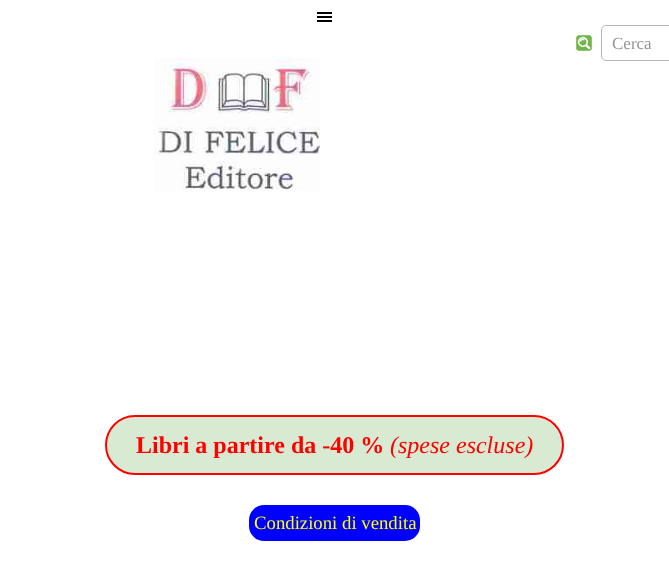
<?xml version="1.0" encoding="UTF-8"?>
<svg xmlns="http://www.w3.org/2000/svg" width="669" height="570">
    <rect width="100%" height="100%" fill="#FFFFFF"/>
    <rect x="317" y="12" width="15" height="2" fill="#000000"/>
    <rect x="317" y="16" width="15" height="2" fill="#000000"/>
    <rect x="317" y="20" width="15" height="2" fill="#000000"/>
    <image x="576" y="35" width="16" height="16" href="img_01.png"/>
    <rect x="601.5" y="25.5" width="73" height="35" rx="4.5" fill="none" stroke="#B7B7B7"/>
    <text x="612" y="49" font-family="Liberation Serif" font-size="17" fill="#949494">Cerca</text>
    <image x="154" y="58" width="166" height="133" href="img_02.png"/>
    <rect x="106" y="416" width="457" height="58" rx="29" fill="#D9EAD3" stroke="#FF0000" stroke-width="2"/>
    <text x="136" y="453" font-family="Liberation Serif" font-size="24" font-weight="700" fill="#FF0000">Libri a partire da -40 %</text>
    <text x="390" y="453" font-family="Liberation Serif" font-size="24" font-style="italic" fill="#FF0000">(spese escluse)</text>
    <rect x="249" y="505" width="171" height="36" rx="15" fill="#0000FF"/>
    <text x="254" y="529" font-family="Liberation Serif" font-size="18.75" fill="#FFFF00">Condizioni di vendita</text>
</svg>
